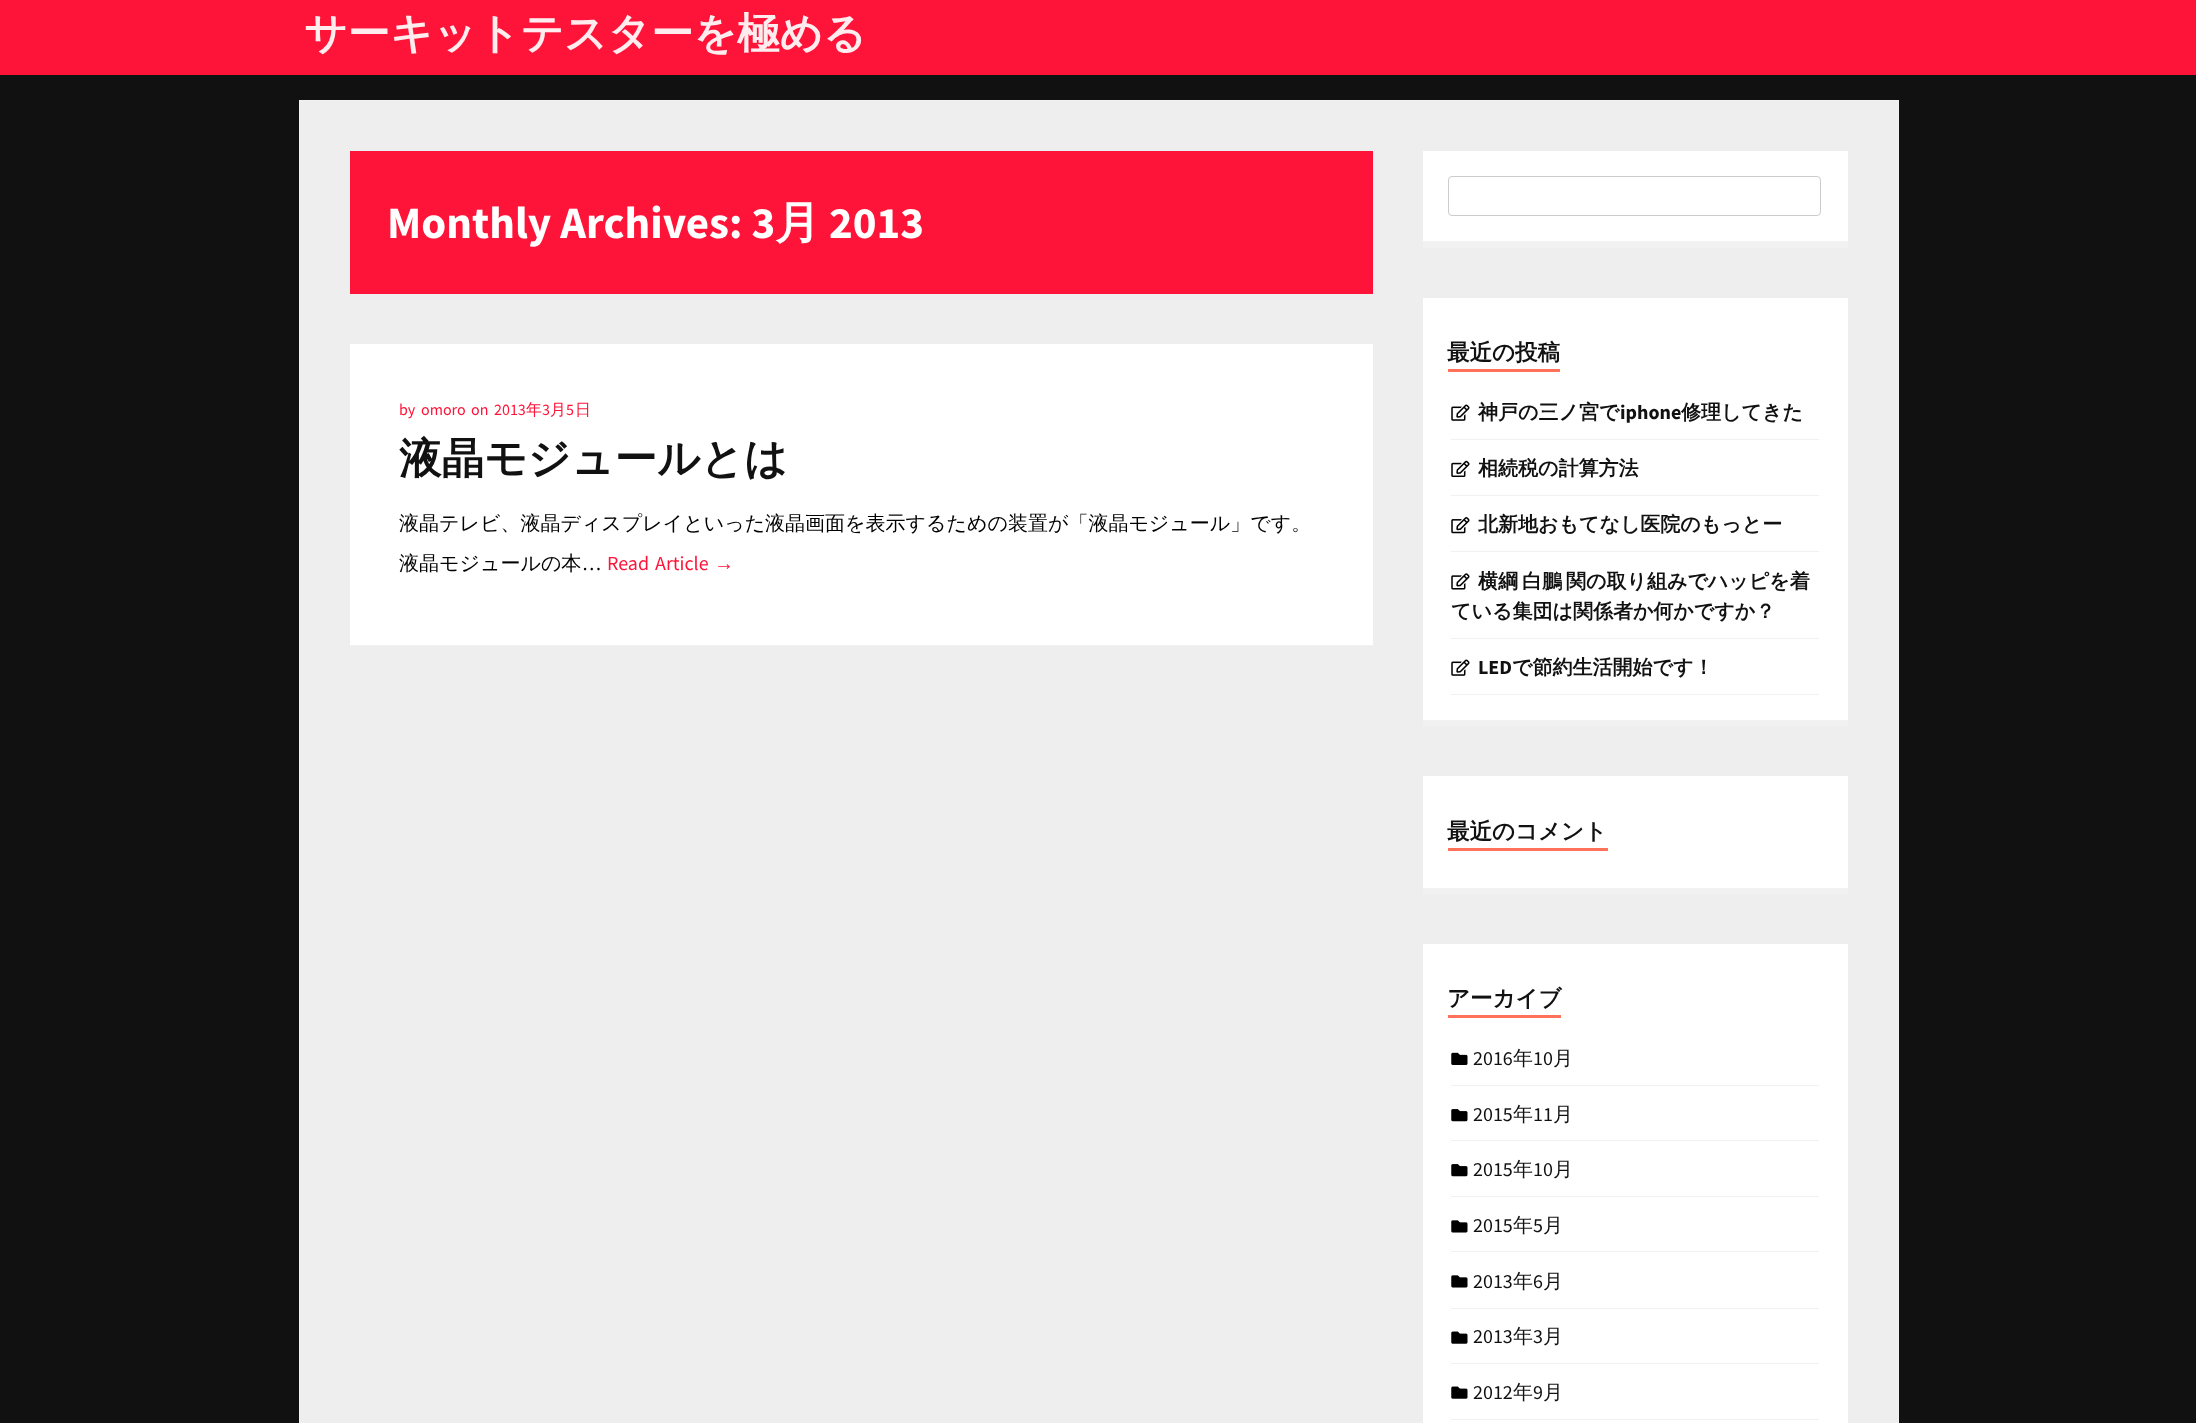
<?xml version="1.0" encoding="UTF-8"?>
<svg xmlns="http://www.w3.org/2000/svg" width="2196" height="1423">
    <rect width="100%" height="100%" fill="#111111"/>
    <rect x="0" y="0" width="2196" height="75" fill="#FF1439"/>
    <text x="304" y="48" font-family="WenQuanYi Zen Hei" font-size="42.5" font-weight="700" fill="#FFECEF">サーキットテスターを極める</text>
    <rect x="299.5" y="100.5" width="1599" height="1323" fill="#EEEEEE" stroke="#F1F1F1"/>
    <rect x="350" y="151" width="1023" height="143" fill="#FF1439"/>
    <text x="387" y="238" font-family="Source Sans Pro" font-size="45" font-weight="700" fill="#FFFFFF">Monthly Archives: 3</text>
    <text x="775" y="238" font-family="WenQuanYi Zen Hei" font-size="45" font-weight="700" fill="#FFFFFF">月</text>
    <text x="829" y="238" font-family="Source Sans Pro" font-size="45" font-weight="700" fill="#FFFFFF">2013</text>
    <rect x="350" y="344" width="1023" height="301" fill="#FFFFFF"/>
    <rect x="350" y="645" width="1023" height="1" fill="#F1F1F1"/>
    <text x="399" y="415" font-family="Source Sans Pro" font-size="16" fill="#FF1439">by</text>
    <text x="421" y="415" font-family="Source Sans Pro" font-size="16" fill="#FF1439">omoro</text>
    <text x="471" y="415" font-family="Source Sans Pro" font-size="16" fill="#FF1439">on</text>
    <text x="494" y="415" font-family="Source Sans Pro" font-size="16" fill="#FF1439">2013</text>
    <text x="526" y="415" font-family="WenQuanYi Zen Hei" font-size="16" font-weight="500" fill="#FF1439">年</text>
    <text x="542" y="415" font-family="Source Sans Pro" font-size="16" fill="#FF1439">3</text>
    <text x="550" y="415" font-family="WenQuanYi Zen Hei" font-size="16" font-weight="500" fill="#FF1439">月</text>
    <text x="566" y="415" font-family="Source Sans Pro" font-size="16" fill="#FF1439">5</text>
    <text x="575" y="415" font-family="WenQuanYi Zen Hei" font-size="16" font-weight="500" fill="#FF1439">日</text>
    <text x="399" y="473" font-family="WenQuanYi Zen Hei" font-size="42.5" font-weight="700" fill="#111111">液晶モジュールとは</text>
    <text x="399" y="530" font-family="WenQuanYi Zen Hei" font-size="20" font-weight="500" fill="#000000">液晶テレビ、液晶ディスプレイといった液晶画面を表示するための装置が「液晶モジュール」です。</text>
    <text x="399" y="570" font-family="WenQuanYi Zen Hei" font-size="20" font-weight="500" fill="#000000">液晶モジュールの本</text>
    <text x="582" y="570" font-family="Source Sans Pro" font-size="20" fill="#000000">…</text>
    <text x="607" y="570" word-spacing="2" font-family="Source Sans Pro" font-size="20" fill="#FF1439">Read Article</text>
    <text x="714" y="570" font-family="Liberation Sans" font-size="20" fill="#FF1439">→</text>
    <rect x="1423" y="151" width="425" height="90" fill="#FFFFFF"/>
    <rect x="1423" y="241" width="425" height="7" fill="#F1F1F1"/>
    <rect x="1448.5" y="176.5" width="372" height="39" rx="3.5" fill="none" stroke="#CCCCCC"/>
    <rect x="1423" y="298" width="425" height="422" fill="#FFFFFF"/>
    <rect x="1423" y="720" width="425" height="6" fill="#F1F1F1"/>
    <rect x="1448" y="369" width="112" height="3" fill="#FF715B"/>
    <text x="1447" y="360" font-family="WenQuanYi Zen Hei" font-size="22.5" font-weight="700" fill="#111111">最近の投稿</text>
    <rect x="1451" y="439" width="368" height="1" fill="#F1F1F1"/>
    <image x="1451" y="404" width="19" height="17" href="img_01.png"/>
    <text x="1478" y="419" font-family="WenQuanYi Zen Hei" font-size="20" font-weight="700" fill="#111111">神戸の三ノ宮で</text>
    <text x="1620" y="419" font-family="Source Sans Pro" font-size="20" font-weight="700" fill="#111111">iphone</text>
    <text x="1681" y="419" font-family="WenQuanYi Zen Hei" font-size="20" font-weight="700" fill="#111111">修理してきた</text>
    <rect x="1451" y="495" width="368" height="1" fill="#F1F1F1"/>
    <image x="1451" y="460" width="19" height="17" href="img_02.png"/>
    <text x="1478" y="475" font-family="WenQuanYi Zen Hei" font-size="20" font-weight="700" fill="#111111">相続税の計算方法</text>
    <rect x="1451" y="551" width="368" height="1" fill="#F1F1F1"/>
    <image x="1451" y="517" width="19" height="17" href="img_03.png"/>
    <text x="1478" y="531" font-family="WenQuanYi Zen Hei" font-size="20" font-weight="700" fill="#111111">北新地おもてなし医院のもっとー</text>
    <rect x="1451" y="638" width="368" height="1" fill="#F1F1F1"/>
    <image x="1451" y="573" width="19" height="17" href="img_04.png"/>
    <text x="1478" y="588" word-spacing="-2" font-family="WenQuanYi Zen Hei" font-size="20" font-weight="700" fill="#111111">横綱 白鵬 関の取り組みでハッピを着</text>
    <text x="1451" y="618" font-family="WenQuanYi Zen Hei" font-size="20" font-weight="700" fill="#111111">ている集団は関係者か何かですか？</text>
    <rect x="1451" y="694" width="368" height="1" fill="#F1F1F1"/>
    <image x="1451" y="659" width="19" height="17" href="img_01.png"/>
    <text x="1478" y="674" font-family="Source Sans Pro" font-size="20" font-weight="700" fill="#111111">LED</text>
    <text x="1512" y="674" font-family="WenQuanYi Zen Hei" font-size="20" font-weight="700" fill="#111111">で節約生活開始です！</text>
    <rect x="1423" y="776" width="425" height="112" fill="#FFFFFF"/>
    <rect x="1423" y="888" width="425" height="6" fill="#F1F1F1"/>
    <rect x="1448" y="848" width="160" height="3" fill="#FF715B"/>
    <text x="1447" y="839" font-family="WenQuanYi Zen Hei" font-size="22.5" font-weight="700" fill="#111111">最近のコメント</text>
    <rect x="1423" y="944" width="425" height="479" fill="#FFFFFF"/>
    <rect x="1448" y="1015" width="113" height="3" fill="#FF715B"/>
    <text x="1447" y="1006" font-family="WenQuanYi Zen Hei" font-size="22.5" font-weight="700" fill="#111111">アーカイブ</text>
    <rect x="1451" y="1085" width="368" height="1" fill="#F1F1F1"/>
    <image x="1451" y="1052" width="17" height="13" href="img_05.png"/>
    <text x="1473" y="1065" font-family="Source Sans Pro" font-size="20" fill="#111111">2016</text>
    <text x="1513" y="1065" font-family="WenQuanYi Zen Hei" font-size="20" font-weight="500" fill="#111111">年</text>
    <text x="1533" y="1065" font-family="Source Sans Pro" font-size="20" fill="#111111">10</text>
    <text x="1553" y="1065" font-family="WenQuanYi Zen Hei" font-size="20" font-weight="500" fill="#111111">月</text>
    <rect x="1451" y="1140" width="368" height="1" fill="#F1F1F1"/>
    <image x="1451" y="1109" width="17" height="13" href="img_06.png"/>
    <text x="1473" y="1121" font-family="Source Sans Pro" font-size="20" fill="#111111">2015</text>
    <text x="1513" y="1121" font-family="WenQuanYi Zen Hei" font-size="20" font-weight="500" fill="#111111">年</text>
    <text x="1533" y="1121" font-family="Source Sans Pro" font-size="20" fill="#111111">11</text>
    <text x="1553" y="1121" font-family="WenQuanYi Zen Hei" font-size="20" font-weight="500" fill="#111111">月</text>
    <rect x="1451" y="1196" width="368" height="1" fill="#F1F1F1"/>
    <image x="1451" y="1164" width="17" height="13" href="img_06.png"/>
    <text x="1473" y="1176" font-family="Source Sans Pro" font-size="20" fill="#111111">2015</text>
    <text x="1513" y="1176" font-family="WenQuanYi Zen Hei" font-size="20" font-weight="500" fill="#111111">年</text>
    <text x="1533" y="1176" font-family="Source Sans Pro" font-size="20" fill="#111111">10</text>
    <text x="1553" y="1176" font-family="WenQuanYi Zen Hei" font-size="20" font-weight="500" fill="#111111">月</text>
    <rect x="1451" y="1251" width="368" height="1" fill="#F1F1F1"/>
    <image x="1451" y="1220" width="17" height="13" href="img_07.png"/>
    <text x="1473" y="1232" font-family="Source Sans Pro" font-size="20" fill="#111111">2015</text>
    <text x="1513" y="1232" font-family="WenQuanYi Zen Hei" font-size="20" font-weight="500" fill="#111111">年</text>
    <text x="1533" y="1232" font-family="Source Sans Pro" font-size="20" fill="#111111">5</text>
    <text x="1543" y="1232" font-family="WenQuanYi Zen Hei" font-size="20" font-weight="500" fill="#111111">月</text>
    <rect x="1451" y="1308" width="368" height="1" fill="#F1F1F1"/>
    <image x="1451" y="1275" width="17" height="13" href="img_07.png"/>
    <text x="1473" y="1288" font-family="Source Sans Pro" font-size="20" fill="#111111">2013</text>
    <text x="1513" y="1288" font-family="WenQuanYi Zen Hei" font-size="20" font-weight="500" fill="#111111">年</text>
    <text x="1533" y="1288" font-family="Source Sans Pro" font-size="20" fill="#111111">6</text>
    <text x="1543" y="1288" font-family="WenQuanYi Zen Hei" font-size="20" font-weight="500" fill="#111111">月</text>
    <rect x="1451" y="1363" width="368" height="1" fill="#F1F1F1"/>
    <image x="1451" y="1331" width="17" height="13" href="img_08.png"/>
    <text x="1473" y="1343" font-family="Source Sans Pro" font-size="20" fill="#111111">2013</text>
    <text x="1513" y="1343" font-family="WenQuanYi Zen Hei" font-size="20" font-weight="500" fill="#111111">年</text>
    <text x="1533" y="1343" font-family="Source Sans Pro" font-size="20" fill="#111111">3</text>
    <text x="1543" y="1343" font-family="WenQuanYi Zen Hei" font-size="20" font-weight="500" fill="#111111">月</text>
    <rect x="1451" y="1419" width="368" height="1" fill="#F1F1F1"/>
    <image x="1451" y="1386" width="17" height="13" href="img_08.png"/>
    <text x="1473" y="1399" font-family="Source Sans Pro" font-size="20" fill="#111111">2012</text>
    <text x="1513" y="1399" font-family="WenQuanYi Zen Hei" font-size="20" font-weight="500" fill="#111111">年</text>
    <text x="1533" y="1399" font-family="Source Sans Pro" font-size="20" fill="#111111">9</text>
    <text x="1543" y="1399" font-family="WenQuanYi Zen Hei" font-size="20" font-weight="500" fill="#111111">月</text>
</svg>
